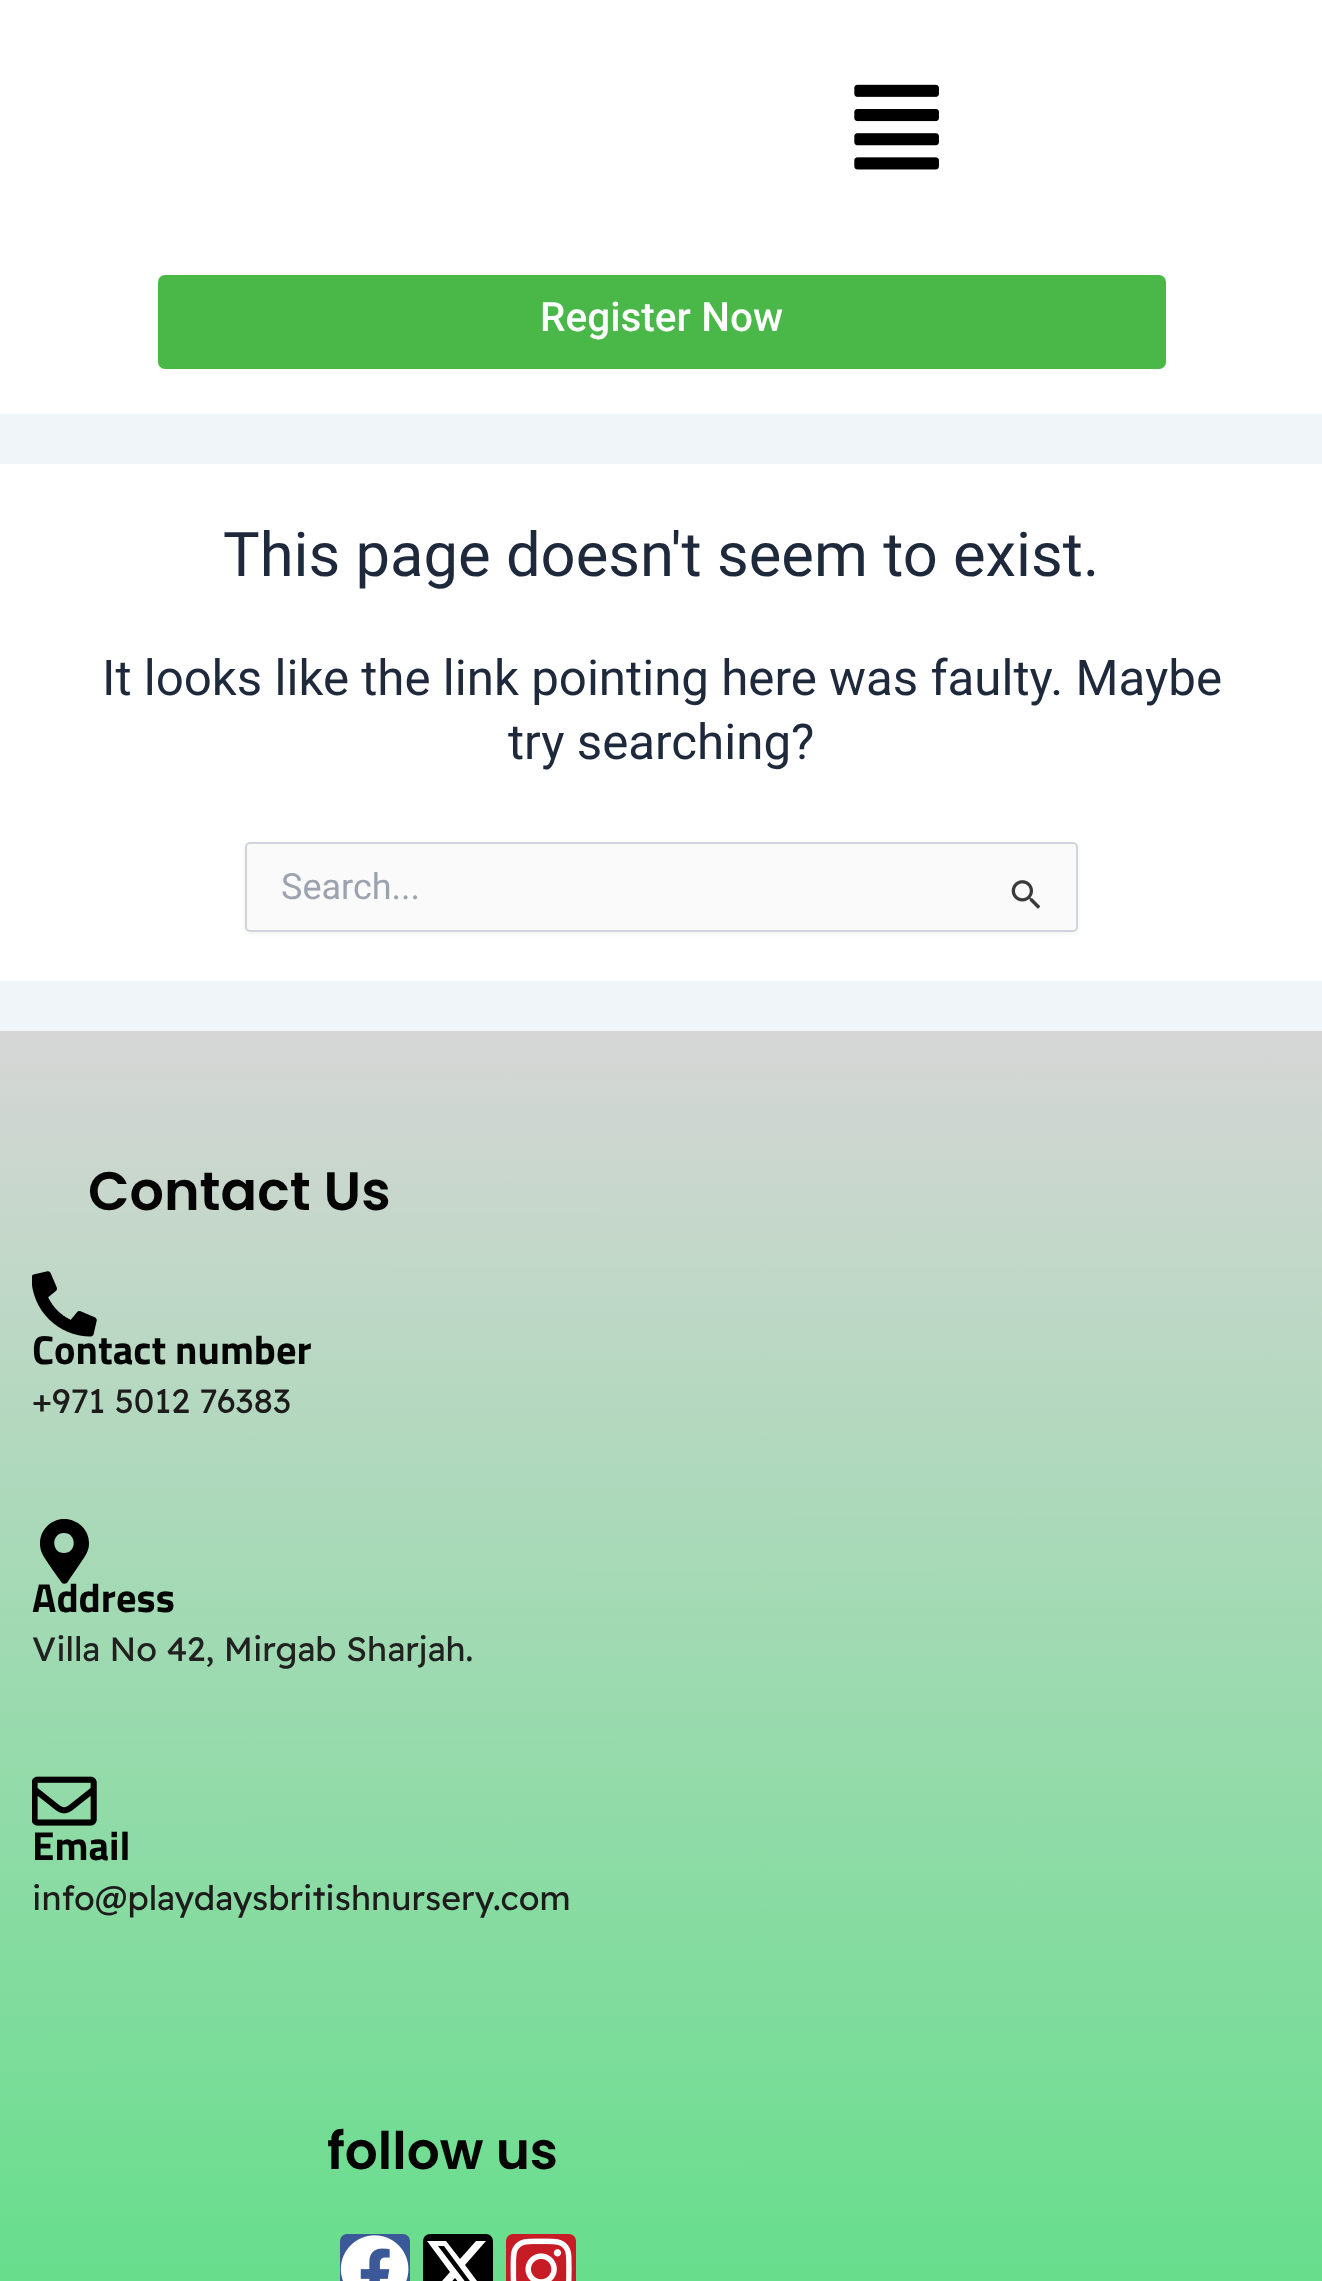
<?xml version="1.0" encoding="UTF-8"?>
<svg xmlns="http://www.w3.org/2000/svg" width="1322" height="2281">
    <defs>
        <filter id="blur1" x="-50%" y="-200%" width="200%" height="500%"><feGaussianBlur stdDeviation="2"/></filter>
        <linearGradient id="g1" gradientUnits="userSpaceOnUse" x1="661" y1="1030" x2="662" y2="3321"><stop offset="0" stop-color="#D6D6D6"/><stop offset="1" stop-color="#0AE44E"/></linearGradient>
    </defs>
    <rect width="100%" height="100%" fill="#F0F5FA"/>
    <rect x="0" y="0" width="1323" height="414" rx="2" fill="#FFFFFF"/>
    <image x="854" y="84" width="85" height="86" href="img_01.png"/>
    <rect x="158" y="275" width="1008" height="94" rx="7" fill="#4AB848"/>
    <text x="540" y="331" font-family="Vazirmatn" font-size="40.5" font-weight="500" fill="#FFFFFF">Register Now</text>
    <rect x="0" y="464" width="1322" height="517" fill="#FFFFFF"/>
    <text x="223" y="576" font-family="Roboto" font-size="61.5" fill="#1E293B">This page doesn't seem to exist.</text>
    <text x="102" y="695" font-family="Roboto" font-size="49.25" fill="#1E293B">It looks like the link pointing here was faulty. Maybe</text>
    <text x="508" y="759" font-family="Roboto" font-size="49.25" fill="#1E293B">try searching?</text>
    <rect x="245" y="844" width="833" height="90" rx="5" fill="#000000" fill-opacity="0.05" filter="url(#blur1)"/>
    <rect x="246" y="843" width="831" height="88" rx="4" fill="#FAFAFA" stroke="#D1D5DB" stroke-width="2"/>
    <text x="281" y="899" font-family="Roboto" font-size="36" fill="#9CA3AF">Search...</text>
    <image x="1011" y="880" width="29" height="29" href="img_02.png"/>
    <rect x="0" y="1031" width="1322" height="1250" fill="url(#g1)"/>
    <text x="88" y="1210" font-family="Poppins" font-size="54" font-weight="600" fill="#050505">Contact Us</text>
    <text x="32" y="1364" font-family="Sunflower" font-size="40.5" font-weight="700" fill="#050505">Contact number</text>
    <image x="32" y="1271" width="65" height="66" href="img_03.png"/>
    <text x="32" y="1413" font-family="Readex Pro" font-size="33.75" fill="#1D1B1B">+971 5012 76383</text>
    <text x="32" y="1612" font-family="Sunflower" font-size="40.5" font-weight="700" fill="#050505">Address</text>
    <path d="M 62 1583 C 43 1556 40 1553 40 1543 C 40 1530 51 1519 64 1519 C 78 1519 89 1530 89 1543 C 89 1553 85 1556 67 1583 C 65 1584 63 1584 62 1583 Z M 64 1553 C 77 1553 77 1533 64 1533 C 51 1533 51 1553 64 1553 Z" fill="#000000"/>
    <text x="32" y="1661" font-family="Readex Pro" font-size="33.75" fill="#222121">Villa No 42, Mirgab Sharjah.</text>
    <image x="32" y="1776" width="65" height="50" href="img_04.png"/>
    <text x="32" y="1860" font-family="Sunflower" font-size="40.5" font-weight="700" fill="#050505">Email</text>
    <text x="32" y="1910" font-family="Readex Pro" font-size="33.75" fill="#1D1B1B">info@playdaysbritishnursery.com</text>
    <text x="327" y="2169" font-family="Poppins" font-size="51.75" font-weight="600" fill="#050505">follow us</text>
    <rect x="340" y="2234" width="70" height="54" rx="7" fill="#3B5998"/>
    <image x="340" y="2235" width="69" height="46" href="img_05.png"/>
    <rect x="423" y="2234" width="70" height="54" rx="7" fill="#000000"/>
    <path d="M 476 2241 H 486 L 465 2265 L 489 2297 H 470 L 455 2278 L 438 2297 H 428 L 450 2272 L 427 2241 H 446 L 460 2259 Z M 473 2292 H 478 L 444 2246 H 438 Z" fill="#FFFFFF"/>
    <rect x="506" y="2234" width="70" height="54" rx="7" fill="#C71B26"/>
    <image x="510" y="2238" width="62" height="43" href="img_06.png"/>
</svg>
